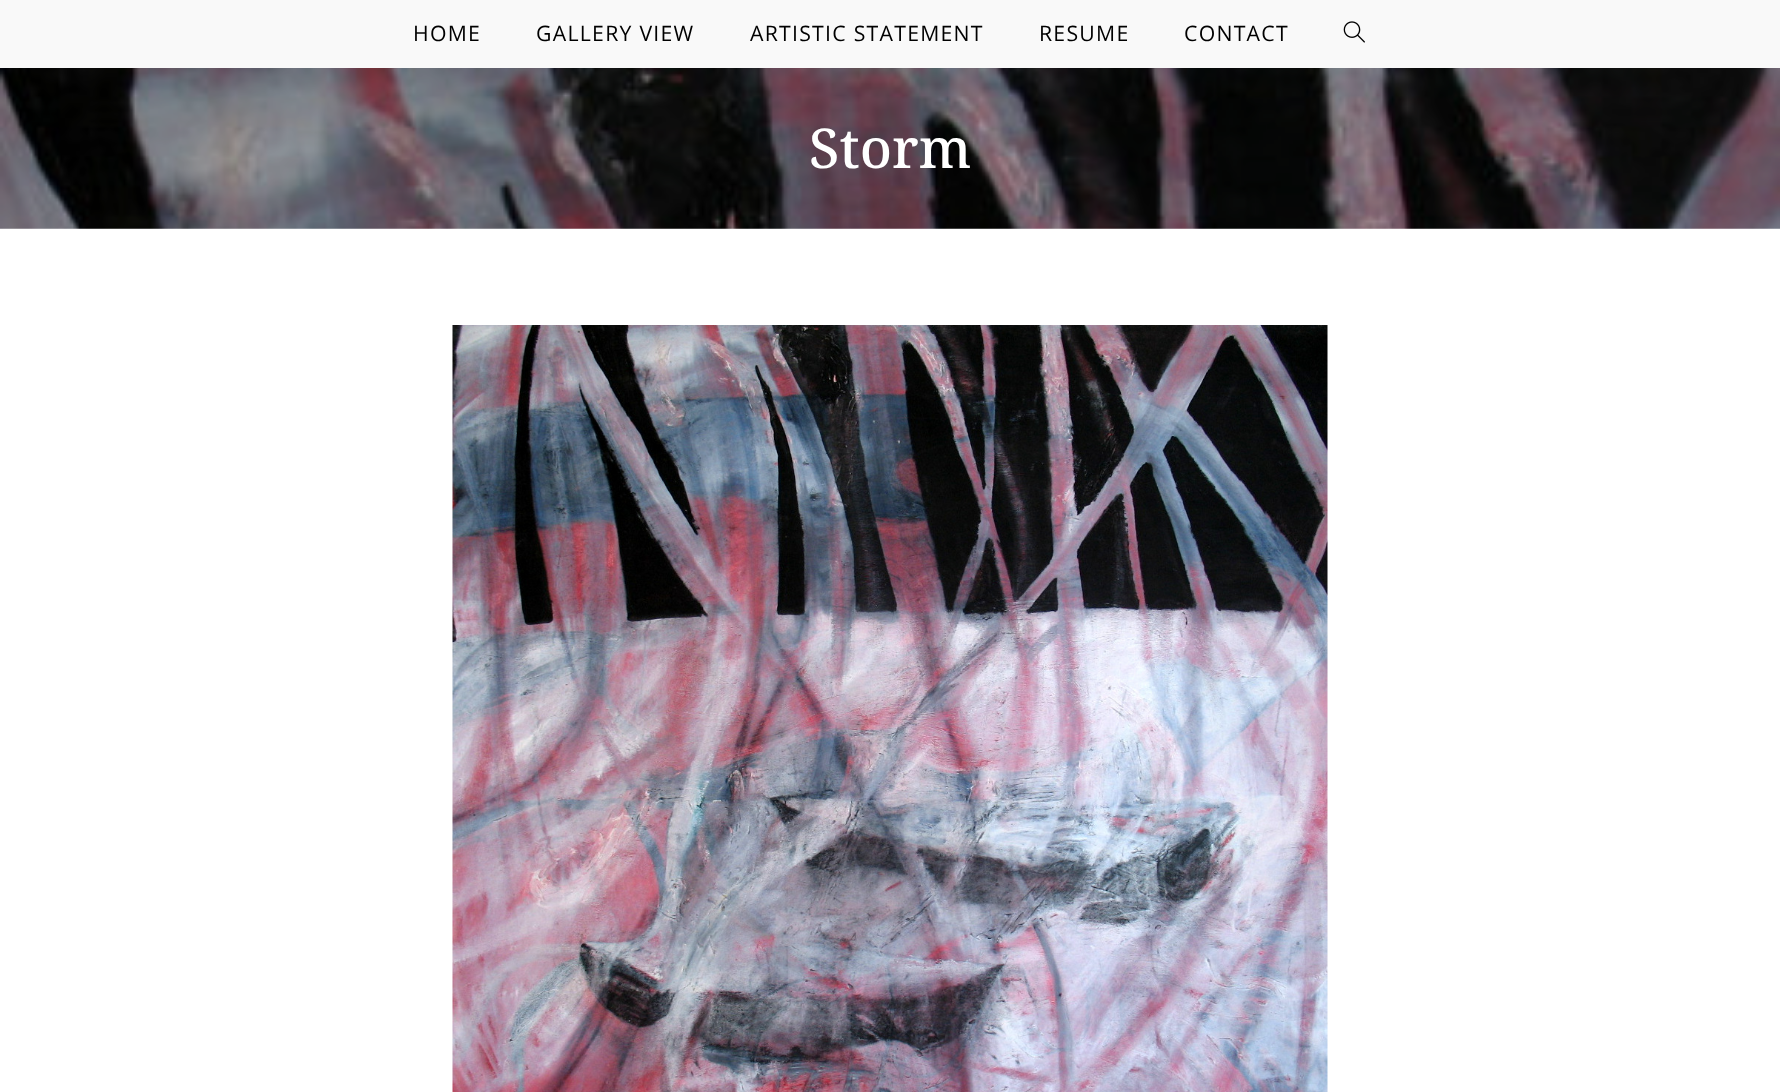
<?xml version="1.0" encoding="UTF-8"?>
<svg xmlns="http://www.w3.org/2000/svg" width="1780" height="1092">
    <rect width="100%" height="100%" fill="#FFFFFF"/>
    <rect x="0" y="0" width="1780" height="68" fill="#F9F9F9"/>
    <text x="413" y="41" font-family="Open Sans" font-size="21.25" letter-spacing="1.25" fill="#000000">HOME</text>
    <text x="536" y="41" font-family="Open Sans" font-size="21.25" letter-spacing="1.25" fill="#000000">GALLERY VIEW</text>
    <text x="750" y="41" font-family="Open Sans" font-size="21.25" letter-spacing="1.25" fill="#000000">ARTISTIC STATEMENT</text>
    <text x="1039" y="41" font-family="Open Sans" font-size="21.25" letter-spacing="1.25" fill="#000000">RESUME</text>
    <text x="1184" y="41" font-family="Open Sans" font-size="21.25" letter-spacing="1.25" fill="#000000">CONTACT</text>
    <image x="1343" y="21" width="22" height="22" href="img_01.png"/>
    <image x="0" y="68" width="1780" height="161" href="img_02.png"/>
    <text x="809" y="168" font-family="Noto Serif" font-size="55" font-weight="500" fill="#FFFFFF">Storm</text>
    <image x="452" y="325" width="876" height="767" href="img_03.png"/>
</svg>
